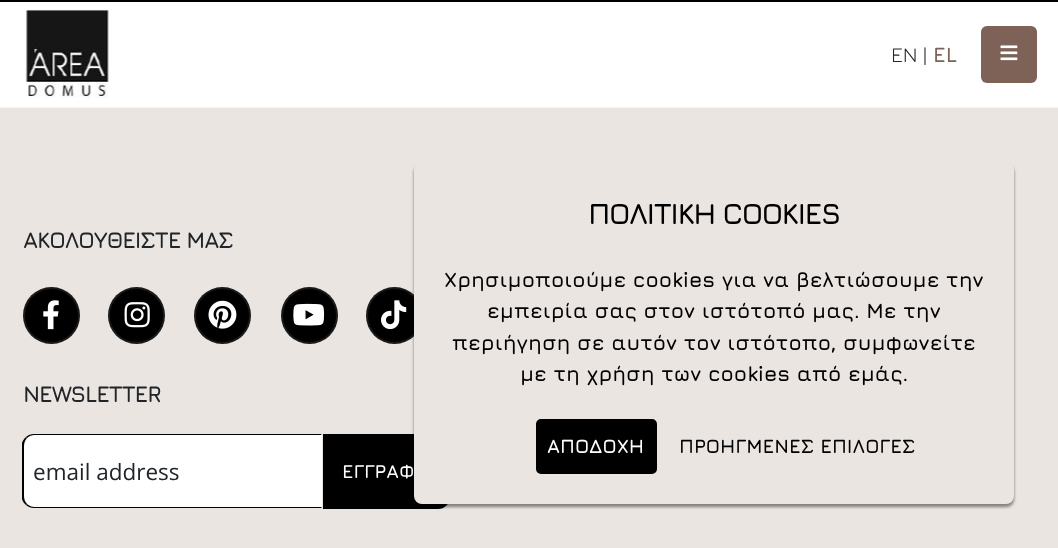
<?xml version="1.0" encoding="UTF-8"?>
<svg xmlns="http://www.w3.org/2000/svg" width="1058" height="548">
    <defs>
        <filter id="blur1" x="-50%" y="-200%" width="200%" height="500%"><feGaussianBlur stdDeviation="1.5"/></filter>
    </defs>
    <rect width="100%" height="100%" fill="#EBE5E2"/>
    <rect x="0" y="2" width="1058" height="106" fill="#FFFFFF"/>
    <rect x="0" y="107" width="1058" height="2" fill="#EAEAEA" fill-opacity="0.5"/>
    <rect x="0" y="0" width="1058" height="2" fill="#000000"/>
    <image x="25" y="9" width="84" height="89" href="img_01.png"/>
    <text x="891" y="62" font-family="Jura" font-size="21" fill="#212529">EN |</text>
    <text x="933" y="62" font-family="Jura" font-size="21" font-weight="700" fill="#7E6257">EL</text>
    <rect x="981" y="26" width="56" height="57" rx="6" fill="#7E6257"/>
    <image x="1000" y="45" width="18" height="16" href="img_02.png"/>
    <text x="23" y="248" font-family="Jura" font-size="22.75" font-weight="700" letter-spacing="-1.1" fill="#212529">ΑΚΟΛΟΥΘΕΙΣΤΕ ΜΑΣ</text>
    <circle cx="51.5" cy="315.5" r="28.5" fill="#000000"/>
    <circle cx="51.5" cy="315.5" r="27.5" fill="none" stroke="#FFFFFF" stroke-opacity="0.1" stroke-width="2"/>
    <image x="43" y="300" width="16" height="30" href="img_03.png"/>
    <circle cx="136.5" cy="315.5" r="28.5" fill="#000000"/>
    <circle cx="136.5" cy="315.5" r="27.5" fill="none" stroke="#FFFFFF" stroke-opacity="0.1" stroke-width="2"/>
    <image x="124" y="302" width="26" height="26" href="img_04.png"/>
    <circle cx="222.5" cy="315.5" r="28.5" fill="#000000"/>
    <circle cx="222.5" cy="315.5" r="27.5" fill="none" stroke="#FFFFFF" stroke-opacity="0.1" stroke-width="2"/>
    <image x="208" y="300" width="29" height="29" href="img_05.png"/>
    <circle cx="309.5" cy="315.5" r="28.5" fill="#000000"/>
    <circle cx="309.5" cy="315.5" r="27.5" fill="none" stroke="#FFFFFF" stroke-opacity="0.1" stroke-width="2"/>
    <image x="293" y="303" width="32" height="23" href="img_06.png"/>
    <circle cx="394.5" cy="315.5" r="28.5" fill="#000000"/>
    <circle cx="394.5" cy="315.5" r="27.5" fill="none" stroke="#FFFFFF" stroke-opacity="0.1" stroke-width="2"/>
    <image x="381" y="300" width="26" height="30" href="img_07.png"/>
    <text x="23" y="402" font-family="Jura" font-size="22.75" font-weight="700" letter-spacing="-1.1" fill="#212529">NEWSLETTER</text>
    <path d="M 35 435 H 321 V 507 H 35 C 29 507 24 502 24 496 V 446 C 24 440 29 435 35 435 Z" fill="#FFFFFF"/>
    <path d="M 34 434 C 31 434 28 435 26 437 L 27 438 C 29 436 32 435 34 435 H 321 L 322 434 Z" fill="#000000"/>
    <path d="M 322 508 V 434 L 321 435 V 507 Z" fill="#FFFFFF"/>
    <path d="M 322 508 L 321 507 H 34 C 32 507 29 506 27 504 L 26 505 C 28 507 31 508 34 508 Z" fill="#000000"/>
    <path d="M 22 443 C 23 440 24 439 26 437 L 27 438 C 25 440 24 443 24 446 V 496 C 24 499 25 502 27 504 L 26 505 C 24 503 23 502 22 499 Z" fill="#000000"/>
    <text x="33" y="480" font-family="Open Sans" font-size="22.5" fill="#212529">email address</text>
    <path d="M 324 435 H 438 C 444 435 449 440 449 446 V 497 C 449 503 444 508 438 508 H 324 Z" fill="#000000" stroke="#000000" stroke-width="2"/>
    <text x="342" y="478" font-family="Jura" font-size="19" font-weight="700" fill="#FFFFFF">ΕΓΓΡΑΦ</text>
    <rect x="414" y="165" width="600" height="342" rx="8" fill="#000000" fill-opacity="0.25" filter="url(#blur1)"/>
    <rect x="414" y="165" width="600" height="342" rx="8" fill="#000000" fill-opacity="0.25" filter="url(#blur1)"/>
    <rect x="414" y="162" width="600" height="342" rx="8" fill="#EBE5E2"/>
    <text x="588" y="224" font-family="Jura" font-size="29.5" font-weight="700" letter-spacing="-1.5" fill="#000000">ΠΟΛΙΤΙΚΗ COOKIES</text>
    <text x="444" y="287" font-family="Jura" font-size="21" font-weight="700" fill="#000000">Χρησιμοποιούμε cookies για να βελτιώσουμε την</text>
    <text x="487" y="318" font-family="Jura" font-size="21" font-weight="700" fill="#000000">εμπειρία σας στον ιστότοπό μας. Με την</text>
    <text x="452" y="350" font-family="Jura" font-size="21" font-weight="700" fill="#000000">περιήγηση σε αυτόν τον ιστότοπο, συμφωνείτε</text>
    <text x="520" y="381" font-family="Jura" font-size="21" font-weight="700" fill="#000000">με τη χρήση των cookies από εμάς.</text>
    <rect x="537" y="420" width="119" height="53" rx="4" fill="#000000" stroke="#000000" stroke-width="2"/>
    <text x="547" y="453" font-family="Jura" font-size="19.5" font-weight="700" fill="#FFFFFF">ΑΠΟΔΟΧΗ</text>
    <text x="679" y="453" font-family="Jura" font-size="19.5" font-weight="700" fill="#000000">ΠΡΟΗΓΜΕΝΕΣ ΕΠΙΛΟΓΕΣ</text>
</svg>
